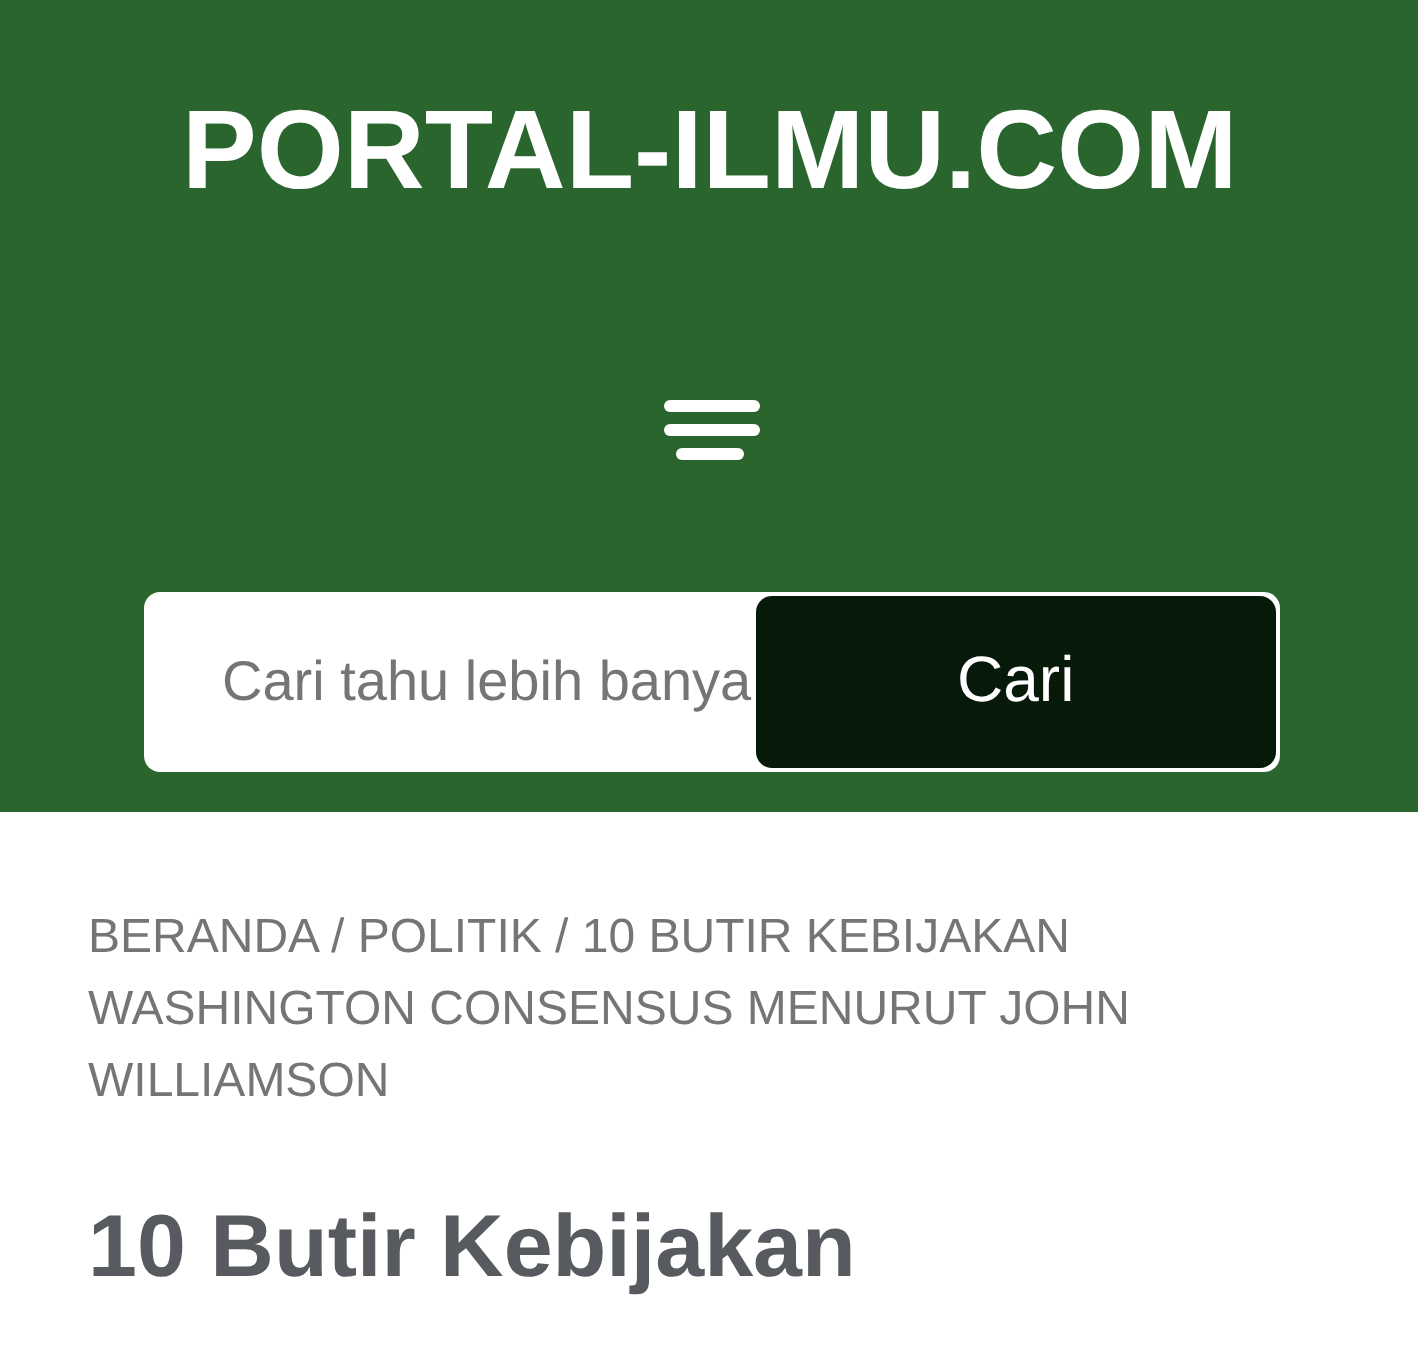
<?xml version="1.0" encoding="UTF-8"?>
<svg xmlns="http://www.w3.org/2000/svg" width="1418" height="1364">
    <rect width="100%" height="100%" fill="#FFFFFF"/>
    <rect x="0" y="0" width="1418" height="812" fill="#2A652E"/>
    <text x="182" y="188" font-family="Liberation Sans" font-size="112" font-weight="700" fill="#FFFFFF">PORTAL-ILMU.COM</text>
    <rect x="664" y="400" width="96" height="12" rx="6" fill="#FFFFFF"/>
    <rect x="664" y="424" width="96" height="12" rx="6" fill="#FFFFFF"/>
    <rect x="676" y="448" width="68" height="12" rx="6" fill="#FFFFFF"/>
    <rect x="144" y="592" width="1136" height="180" rx="16" fill="#FFFFFF"/>
    <text x="222" y="700" font-family="Liberation Sans" font-size="56" fill="#757575">Cari tahu lebih banya</text>
    <rect x="756" y="596" width="520" height="172" rx="16" fill="#071A09"/>
    <text x="957" y="701" font-family="Liberation Sans" font-size="64" fill="#FFFFFF">Cari</text>
    <text x="88" y="952" font-family="Liberation Sans" font-size="48" fill="#757575">BERANDA</text>
    <text x="331" y="952" font-family="Liberation Sans" font-size="48" fill="#757575">/ POLITIK / 10 BUTIR KEBIJAKAN</text>
    <text font-family="Liberation Sans" font-size="48" fill="#757575">
        <tspan x="88" y="1024">WASHINGTON CONSENSUS MENURUT JOHN</tspan>
        <tspan x="88" y="1096">WILLIAMSON</tspan>
    </text>
    <text x="88" y="1276" font-family="Liberation Sans" font-size="88" font-weight="700" fill="#575A5F">10 Butir Kebijakan</text>
</svg>
